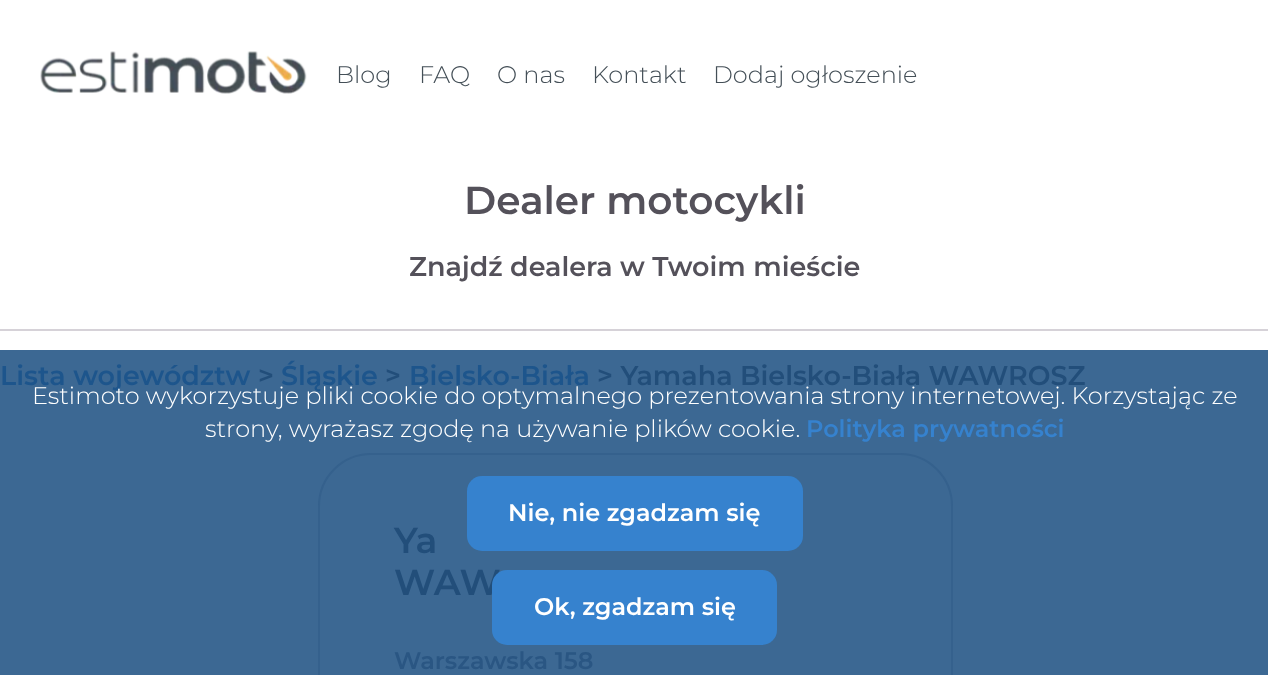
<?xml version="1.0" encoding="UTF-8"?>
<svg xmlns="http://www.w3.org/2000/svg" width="1268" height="675">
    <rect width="100%" height="100%" fill="#FFFFFF"/>
    <rect x="0" y="350" width="1268" height="325" fill="#3C6893"/>
    <image x="40" y="51" width="267" height="43" href="img_01.png"/>
    <text x="336" y="83" font-family="Montserrat" font-size="24" font-weight="300" fill="#444F57">Blog</text>
    <text x="419" y="83" font-family="Montserrat" font-size="24" font-weight="300" fill="#444F57">FAQ</text>
    <text x="497" y="83" font-family="Montserrat" font-size="24" font-weight="300" fill="#444F57">O nas</text>
    <text x="592" y="83" font-family="Montserrat" font-size="24" font-weight="300" fill="#444F57">Kontakt</text>
    <text x="713" y="83" font-family="Montserrat" font-size="24" font-weight="300" fill="#444F57">Dodaj ogłoszenie</text>
    <text x="464" y="214" font-family="Montserrat" font-size="39" font-weight="600" fill="#54515A">Dealer motocykli</text>
    <text x="409" y="276" font-family="Montserrat" font-size="27" font-weight="600" fill="#54515A">Znajdź dealera w Twoim mieście</text>
    <rect x="0" y="329" width="1268" height="2" fill="#D6D2D8"/>
    <text x="0" y="385" font-family="Montserrat" font-size="27" font-weight="600" fill="#1D558C">Lista województw</text>
    <text x="258" y="385" font-family="Montserrat" font-size="27" font-weight="600" fill="#224E7A">&gt;</text>
    <text x="281" y="385" font-family="Montserrat" font-size="27" font-weight="600" fill="#1D558C">Śląskie</text>
    <text x="385" y="385" font-family="Montserrat" font-size="27" font-weight="600" fill="#224E7A">&gt;</text>
    <text x="409" y="385" font-family="Montserrat" font-size="27" font-weight="600" fill="#1D558C">Bielsko-Biała</text>
    <text x="597" y="385" font-family="Montserrat" font-size="27" font-weight="600" fill="#224E7A">&gt; Yamaha Bielsko-Biała WAWROSZ</text>
    <rect x="319" y="454" width="633" height="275" rx="52" fill="none" stroke="#35618D" stroke-width="2"/>
    <text font-family="Montserrat" font-size="36" font-weight="600" fill="#224E7A">
        <tspan x="394" y="553">Ya</tspan>
        <tspan x="394" y="595">WAW</tspan>
    </text>
    <text x="394" y="669" font-family="Montserrat" font-size="24" font-weight="600" fill="#2A5683">Warszawska 158</text>
    <text x="32" y="404" font-family="Montserrat" font-size="24" font-weight="300" fill="#FFFFFF">Estimoto wykorzystuje pliki cookie do optymalnego prezentowania strony internetowej. Korzystając ze</text>
    <text x="205" y="437" font-family="Montserrat" font-size="24" font-weight="300" fill="#FFFFFF">strony, wyrażasz zgodę na używanie plików cookie.</text>
    <text x="806" y="437" font-family="Montserrat" font-size="24" font-weight="600" fill="#3682CE">Polityka prywatności</text>
    <rect x="467" y="476" width="336" height="75" rx="15" fill="#3682CE"/>
    <text x="508" y="521" font-family="Montserrat" font-size="24" font-weight="600" fill="#FFFFFF">Nie, nie zgadzam się</text>
    <rect x="492" y="570" width="285" height="75" rx="15" fill="#3682CE"/>
    <text x="534" y="615" font-family="Montserrat" font-size="24" font-weight="600" fill="#FFFFFF">Ok, zgadzam się</text>
</svg>
